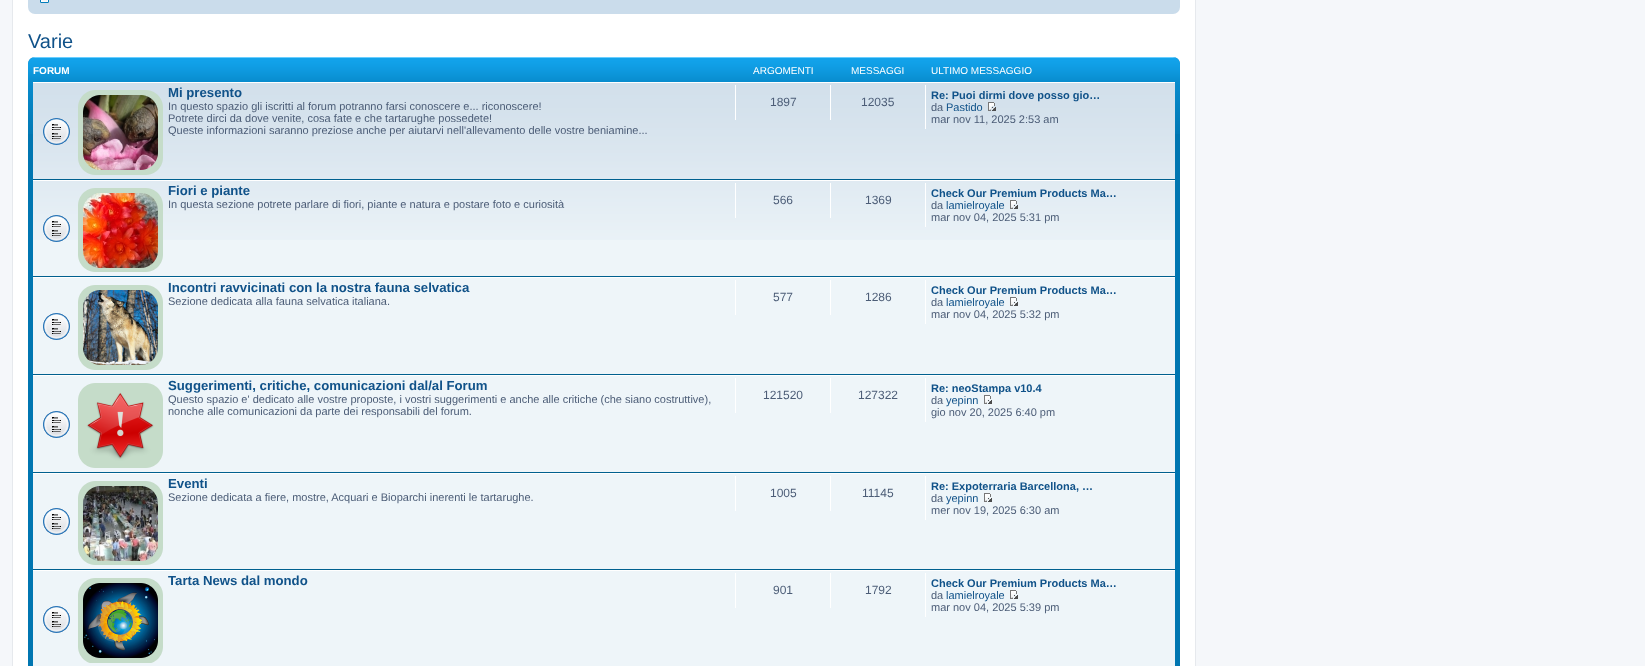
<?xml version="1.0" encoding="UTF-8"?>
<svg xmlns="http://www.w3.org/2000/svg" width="1645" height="666">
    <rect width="100%" height="100%" fill="#F5F7FA"/>
    <rect x="12.5" y="-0.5" width="1183" height="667" fill="#FFFFFF" stroke="#E6E9ED"/>
    <rect x="28" y="-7" width="1152" height="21" rx="7" fill="#CADCEB"/>
    <image x="40" y="0" width="9" height="3" href="img_01.png"/>
    <text x="28" y="48" font-family="Liberation Sans" font-size="20" fill="#105289">Varie</text>
    <rect x="28" y="57" width="1152" height="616" rx="7" fill="#0076B1"/>
    <image x="28" y="57" width="1152" height="77" href="img_02.png"/>
    <text x="33" y="74" font-family="Liberation Sans" font-size="10" font-weight="700" fill="#FFFFFF">FORUM</text>
    <text x="753" y="74" font-family="Liberation Sans" font-size="10" fill="#FFFFFF">ARGOMENTI</text>
    <text x="851" y="74" font-family="Liberation Sans" font-size="10" fill="#FFFFFF">MESSAGGI</text>
    <text x="931" y="74" font-family="Liberation Sans" font-size="10" fill="#FFFFFF">ULTIMO MESSAGGIO</text>
    <rect x="33" y="240" width="1142" height="426" fill="#EEF5F9"/>
    <image x="33" y="83" width="1142" height="157" href="img_03.png"/>
    <rect x="33" y="82" width="1142" height="1" fill="#FFFFFF"/>
    <rect x="33" y="179" width="1142" height="1" fill="#00608F"/>
    <image x="43" y="118" width="27" height="27" href="img_04.png"/>
    <image x="78" y="90" width="85" height="85" href="img_05.png"/>
    <text x="168" y="97" font-family="Liberation Sans" font-size="13.2" font-weight="700" fill="#105289">Mi presento</text>
    <text font-family="Liberation Sans" font-size="11" fill="#4C5D77">
        <tspan x="168" y="110">In questo spazio gli iscritti al forum potranno farsi conoscere e... riconoscere!</tspan>
        <tspan x="168" y="122">Potrete dirci da dove venite, cosa fate e che tartarughe possedete!</tspan>
        <tspan x="168" y="134">Queste informazioni saranno preziose anche per aiutarvi nell'allevamento delle vostre beniamine...</tspan>
    </text>
    <rect x="735" y="85" width="1" height="35" fill="#FFFFFF"/>
    <text x="770" y="106" font-family="Liberation Sans" font-size="12" fill="#4C5D77">1897</text>
    <rect x="830" y="85" width="1" height="35" fill="#FFFFFF"/>
    <text x="861" y="106" font-family="Liberation Sans" font-size="12" fill="#4C5D77">12035</text>
    <rect x="925" y="85" width="1" height="44" fill="#FFFFFF"/>
    <text x="931" y="99" font-family="Liberation Sans" font-size="11" font-weight="700" fill="#105289">Re: Puoi dirmi dove posso gio…</text>
    <text x="931" y="111" font-family="Liberation Sans" font-size="11" fill="#4C5D77">da</text>
    <text x="946" y="111" font-family="Liberation Sans" font-size="11" fill="#105289">Pastido</text>
    <image x="988" y="102" width="8" height="9" href="img_06.png"/>
    <text x="931" y="123" font-family="Liberation Sans" font-size="11" fill="#4C5D77">mar nov 11, 2025 2:53 am</text>
    <rect x="33" y="180" width="1142" height="1" fill="#FFFFFF"/>
    <rect x="33" y="276" width="1142" height="1" fill="#00608F"/>
    <image x="43" y="215" width="27" height="27" href="img_07.png"/>
    <image x="78" y="188" width="85" height="84" href="img_08.png"/>
    <text x="168" y="195" font-family="Liberation Sans" font-size="13.2" font-weight="700" fill="#105289">Fiori e piante</text>
    <text x="168" y="208" font-family="Liberation Sans" font-size="11" fill="#4C5D77">In questa sezione potrete parlare di fiori, piante e natura e postare foto e curiosità</text>
    <rect x="735" y="183" width="1" height="35" fill="#FFFFFF"/>
    <text x="773" y="204" font-family="Liberation Sans" font-size="12" fill="#4C5D77">566</text>
    <rect x="830" y="183" width="1" height="35" fill="#FFFFFF"/>
    <text x="865" y="204" font-family="Liberation Sans" font-size="12" fill="#4C5D77">1369</text>
    <rect x="925" y="183" width="1" height="44" fill="#FFFFFF"/>
    <text x="931" y="197" font-family="Liberation Sans" font-size="11" font-weight="700" fill="#105289">Check Our Premium Products Ma…</text>
    <text x="931" y="209" font-family="Liberation Sans" font-size="11" fill="#4C5D77">da</text>
    <text x="946" y="209" font-family="Liberation Sans" font-size="11" fill="#105289">lamielroyale</text>
    <image x="1010" y="200" width="8" height="9" href="img_09.png"/>
    <text x="931" y="221" font-family="Liberation Sans" font-size="11" fill="#4C5D77">mar nov 04, 2025 5:31 pm</text>
    <rect x="33" y="277" width="1142" height="1" fill="#FFFFFF"/>
    <rect x="33" y="374" width="1142" height="1" fill="#00608F"/>
    <image x="43" y="313" width="27" height="27" href="img_10.png"/>
    <image x="78" y="285" width="85" height="85" href="img_11.png"/>
    <text x="168" y="292" font-family="Liberation Sans" font-size="13.2" font-weight="700" fill="#105289">Incontri ravvicinati con la nostra fauna selvatica</text>
    <text x="168" y="305" font-family="Liberation Sans" font-size="11" fill="#4C5D77">Sezione dedicata alla fauna selvatica italiana.</text>
    <rect x="735" y="280" width="1" height="35" fill="#FFFFFF"/>
    <text x="773" y="301" font-family="Liberation Sans" font-size="12" fill="#4C5D77">577</text>
    <rect x="830" y="280" width="1" height="35" fill="#FFFFFF"/>
    <text x="865" y="301" font-family="Liberation Sans" font-size="12" fill="#4C5D77">1286</text>
    <rect x="925" y="280" width="1" height="44" fill="#FFFFFF"/>
    <text x="931" y="294" font-family="Liberation Sans" font-size="11" font-weight="700" fill="#105289">Check Our Premium Products Ma…</text>
    <text x="931" y="306" font-family="Liberation Sans" font-size="11" fill="#4C5D77">da</text>
    <text x="946" y="306" font-family="Liberation Sans" font-size="11" fill="#105289">lamielroyale</text>
    <image x="1010" y="297" width="8" height="9" href="img_12.png"/>
    <text x="931" y="318" font-family="Liberation Sans" font-size="11" fill="#4C5D77">mar nov 04, 2025 5:32 pm</text>
    <rect x="33" y="375" width="1142" height="1" fill="#FFFFFF"/>
    <rect x="33" y="472" width="1142" height="1" fill="#00608F"/>
    <image x="43" y="411" width="27" height="27" href="img_10.png"/>
    <image x="78" y="383" width="85" height="85" href="img_13.png"/>
    <text x="168" y="390" font-family="Liberation Sans" font-size="13.2" font-weight="700" fill="#105289">Suggerimenti, critiche, comunicazioni dal/al Forum</text>
    <text font-family="Liberation Sans" font-size="11" fill="#4C5D77">
        <tspan x="168" y="403">Questo spazio e' dedicato alle vostre proposte, i vostri suggerimenti e anche alle critiche (che siano costruttive),</tspan>
        <tspan x="168" y="415">nonche alle comunicazioni da parte dei responsabili del forum.</tspan>
    </text>
    <rect x="735" y="378" width="1" height="35" fill="#FFFFFF"/>
    <text x="763" y="399" font-family="Liberation Sans" font-size="12" fill="#4C5D77">121520</text>
    <rect x="830" y="378" width="1" height="35" fill="#FFFFFF"/>
    <text x="858" y="399" font-family="Liberation Sans" font-size="12" fill="#4C5D77">127322</text>
    <rect x="925" y="378" width="1" height="44" fill="#FFFFFF"/>
    <text x="931" y="392" font-family="Liberation Sans" font-size="11" font-weight="700" fill="#105289">Re: neoStampa v10.4</text>
    <text x="931" y="404" font-family="Liberation Sans" font-size="11" fill="#4C5D77">da</text>
    <text x="946" y="404" font-family="Liberation Sans" font-size="11" fill="#105289">yepinn</text>
    <image x="984" y="395" width="8" height="9" href="img_12.png"/>
    <text x="931" y="416" font-family="Liberation Sans" font-size="11" fill="#4C5D77">gio nov 20, 2025 6:40 pm</text>
    <rect x="33" y="473" width="1142" height="1" fill="#FFFFFF"/>
    <rect x="33" y="569" width="1142" height="1" fill="#00608F"/>
    <image x="43" y="508" width="27" height="27" href="img_10.png"/>
    <image x="78" y="481" width="85" height="84" href="img_14.png"/>
    <text x="168" y="488" font-family="Liberation Sans" font-size="13.2" font-weight="700" fill="#105289">Eventi</text>
    <text x="168" y="501" font-family="Liberation Sans" font-size="11" fill="#4C5D77">Sezione dedicata a fiere, mostre, Acquari e Bioparchi inerenti le tartarughe.</text>
    <rect x="735" y="476" width="1" height="35" fill="#FFFFFF"/>
    <text x="770" y="497" font-family="Liberation Sans" font-size="12" fill="#4C5D77">1005</text>
    <rect x="830" y="476" width="1" height="35" fill="#FFFFFF"/>
    <text x="862" y="497" font-family="Liberation Sans" font-size="12" fill="#4C5D77">11145</text>
    <rect x="925" y="476" width="1" height="44" fill="#FFFFFF"/>
    <text x="931" y="490" font-family="Liberation Sans" font-size="11" font-weight="700" fill="#105289">Re: Expoterraria Barcellona, …</text>
    <text x="931" y="502" font-family="Liberation Sans" font-size="11" fill="#4C5D77">da</text>
    <text x="946" y="502" font-family="Liberation Sans" font-size="11" fill="#105289">yepinn</text>
    <image x="984" y="493" width="8" height="9" href="img_12.png"/>
    <text x="931" y="514" font-family="Liberation Sans" font-size="11" fill="#4C5D77">mer nov 19, 2025 6:30 am</text>
    <rect x="33" y="570" width="1142" height="1" fill="#FFFFFF"/>
    <image x="43" y="606" width="27" height="27" href="img_10.png"/>
    <image x="78" y="578" width="85" height="85" href="img_15.png"/>
    <text x="168" y="585" font-family="Liberation Sans" font-size="13.2" font-weight="700" fill="#105289">Tarta News dal mondo</text>
    <rect x="735" y="573" width="1" height="35" fill="#FFFFFF"/>
    <text x="773" y="594" font-family="Liberation Sans" font-size="12" fill="#4C5D77">901</text>
    <rect x="830" y="573" width="1" height="35" fill="#FFFFFF"/>
    <text x="865" y="594" font-family="Liberation Sans" font-size="12" fill="#4C5D77">1792</text>
    <rect x="925" y="573" width="1" height="44" fill="#FFFFFF"/>
    <text x="931" y="587" font-family="Liberation Sans" font-size="11" font-weight="700" fill="#105289">Check Our Premium Products Ma…</text>
    <text x="931" y="599" font-family="Liberation Sans" font-size="11" fill="#4C5D77">da</text>
    <text x="946" y="599" font-family="Liberation Sans" font-size="11" fill="#105289">lamielroyale</text>
    <image x="1010" y="590" width="8" height="9" href="img_12.png"/>
    <text x="931" y="611" font-family="Liberation Sans" font-size="11" fill="#4C5D77">mar nov 04, 2025 5:39 pm</text>
</svg>
